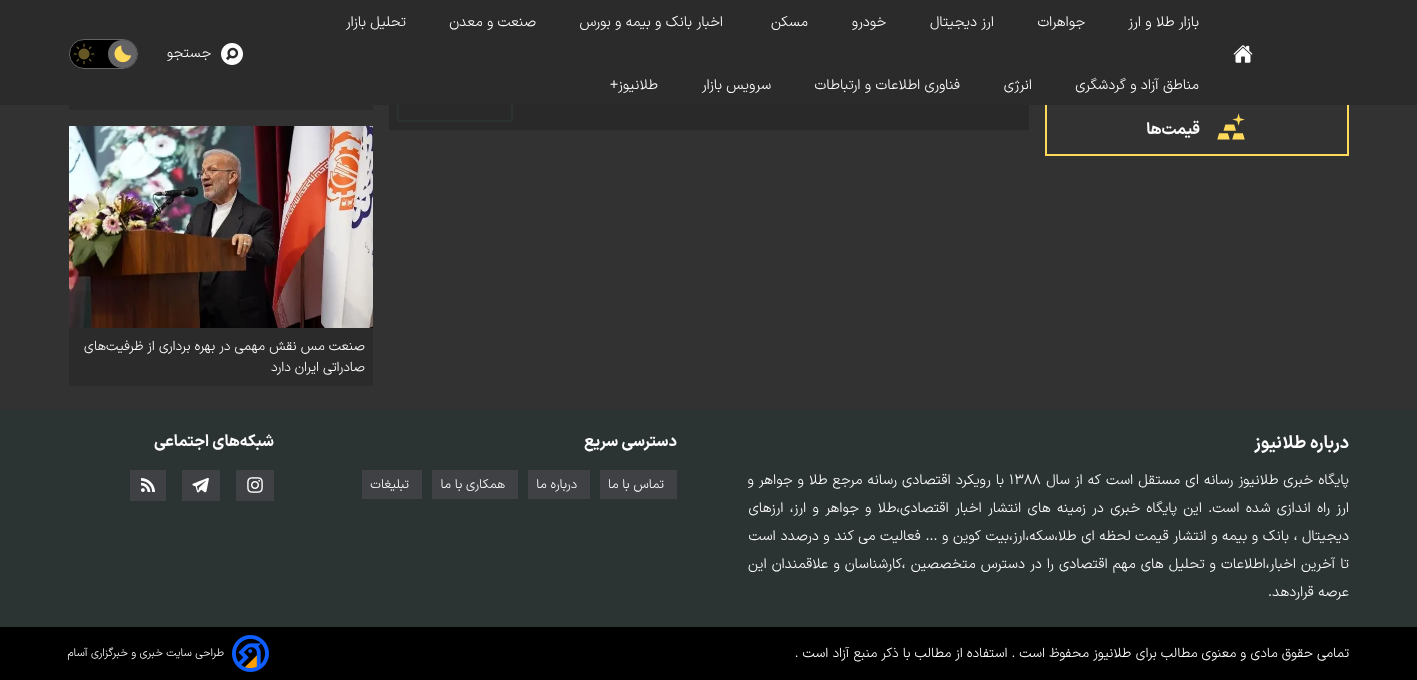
<?xml version="1.0" encoding="UTF-8"?>
<svg xmlns="http://www.w3.org/2000/svg" width="1417" height="680">
    <rect width="100%" height="100%" fill="#323232"/>
    <rect x="1046" y="103" width="302" height="52" fill="none" stroke="#FFD95A" stroke-width="2"/>
    <rect x="389" y="105" width="640" height="25" fill="#292929"/>
    <rect x="398" y="91" width="114" height="30" rx="3" fill="none" stroke="#2C3333" stroke-width="2"/>
    <rect x="0" y="0" width="1417" height="105" fill="#2B2B2B"/>
    <image x="1233" y="45" width="20" height="18" href="img_01.png"/>
    <text x="1199" y="26" font-family="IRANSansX" font-size="14.4" font-weight="300" direction="rtl" fill="#FFFFFF">بازار طلا و ارز</text>
    <text x="1085" y="26" font-family="IRANSansX" font-size="14.4" font-weight="300" direction="rtl" fill="#FFFFFF">جواهرات</text>
    <text x="994" y="26" font-family="IRANSansX" font-size="14.4" font-weight="300" direction="rtl" fill="#FFFFFF">ارز دیجیتال</text>
    <text x="886" y="26" font-family="IRANSansX" font-size="14.4" font-weight="300" direction="rtl" fill="#FFFFFF">خودرو</text>
    <text x="808" y="26" font-family="IRANSansX" font-size="14.4" font-weight="300" direction="rtl" fill="#FFFFFF">مسکن</text>
    <text x="723" y="26" font-family="IRANSansX" font-size="14.4" font-weight="300" direction="rtl" fill="#FFFFFF">اخبار بانک و بیمه و بورس</text>
    <text x="536" y="26" font-family="IRANSansX" font-size="14.4" font-weight="300" direction="rtl" fill="#FFFFFF">صنعت و معدن</text>
    <text x="406" y="26" font-family="IRANSansX" font-size="14.4" font-weight="300" direction="rtl" fill="#FFFFFF">تحلیل بازار</text>
    <text x="1199" y="89" font-family="IRANSansX" font-size="14.4" font-weight="300" direction="rtl" fill="#FFFFFF">مناطق آزاد و گردشگری</text>
    <text x="1032" y="89" font-family="IRANSansX" font-size="14.4" font-weight="300" direction="rtl" fill="#FFFFFF">انرژی</text>
    <text x="960" y="89" font-family="IRANSansX" font-size="14.4" font-weight="300" direction="rtl" fill="#FFFFFF">فناوری اطلاعات و ارتباطات</text>
    <text x="771" y="89" font-family="IRANSansX" font-size="14.4" font-weight="300" direction="rtl" fill="#FFFFFF">سرویس بازار</text>
    <text x="658" y="89" font-family="IRANSansX" font-size="14.4" font-weight="300" direction="rtl" fill="#FFFFFF">طلانیوز+</text>
    <image x="221" y="43" width="22" height="22" href="img_02.png"/>
    <text x="211" y="57" font-family="IRANSansX" font-size="14.4" font-weight="300" direction="rtl" fill="#FFFFFF">جستجو</text>
    <rect x="69.5" y="39.5" width="68" height="29" rx="14.5" fill="#000000" stroke="#636366"/>
    <rect x="108" y="40" width="29" height="28" rx="14" fill="#636366"/>
    <image x="114" y="45" width="18" height="18" href="img_03.png"/>
    <image x="73" y="43" width="22" height="22" href="img_04.png"/>
    <image x="1217" y="113" width="28" height="27" href="img_05.png"/>
    <text x="1200" y="134" font-family="IRANSansX" font-size="16" font-weight="700" direction="rtl" fill="#FFFFFF">قیمت‌ها</text>
    <rect x="69" y="105" width="304" height="5" fill="#2B2B2B"/>
    <image x="69" y="126" width="304" height="202" href="img_06.png"/>
    <rect x="69" y="328" width="304" height="58" fill="#2B2B2B"/>
    <text font-family="IRANSansX" font-size="13.6" font-weight="300" direction="rtl" fill="#FFFFFF">
        <tspan x="365" y="350">صنعت مس نقش مهمی در بهره برداری از ظرفیت‌های</tspan>
        <tspan x="365" y="371">صادراتی ایران دارد</tspan>
    </text>
    <rect x="0" y="410" width="1417" height="217" fill="#2C3333"/>
    <text x="1349" y="448" font-family="IRANSansX" font-size="17.5" font-weight="700" direction="rtl" fill="#FFFFFF">درباره طلانیوز</text>
    <text x="1349" y="484" word-spacing="0.75" font-family="IRANSansX" font-size="14.4" font-weight="300" direction="rtl" fill="#FFFFFF">پایگاه خبری طلانیوز رسانه ای مستقل است که از سال</text>
    <text x="1009" y="484" font-family="IRANSansX" font-size="14.4" font-weight="300" fill="#FFFFFF">۱۳۸۸</text>
    <text x="1004" y="484" word-spacing="0.75" font-family="IRANSansX" font-size="14.4" font-weight="300" direction="rtl" fill="#FFFFFF">با رویکرد اقتصادی رسانه مرجع طلا و جواهر و</text>
    <text font-family="IRANSansX" font-size="14.4" font-weight="300" direction="rtl" fill="#FFFFFF">
        <tspan x="1349" y="512" word-spacing="2">ارز راه اندازی شده است. این پایگاه خبری در زمینه های انتشار اخبار اقتصادی،طلا و جواهر و ارز، ارزهای</tspan>
        <tspan x="1349" y="540" word-spacing="0.3">دیجیتال ، بانک و بیمه و انتشار قیمت لحظه ای طلا،سکه،ارز،بیت کوین و ... فعالیت می کند و درصدد است</tspan>
        <tspan x="1349" y="568" word-spacing="0.75">تا آخرین اخبار،اطلاعات و تحلیل های مهم اقتصادی را در دسترس متخصصین ،کارشناسان و علاقمندان این</tspan>
        <tspan x="1349" y="596">عرصه قراردهد.</tspan>
    </text>
    <text x="677" y="446" font-family="IRANSansX" font-size="16" font-weight="700" direction="rtl" fill="#FFFFFF">دسترسی سریع</text>
    <rect x="600" y="470" width="77" height="29" fill="#404145"/>
    <text x="664" y="488" font-family="IRANSansX" font-size="13" font-weight="300" direction="rtl" fill="#FFFFFF">تماس‌ با‌ ما</text>
    <rect x="528" y="470" width="62" height="29" fill="#404145"/>
    <text x="577" y="488" font-family="IRANSansX" font-size="13" font-weight="300" direction="rtl" fill="#FFFFFF">درباره ما</text>
    <rect x="432" y="470" width="86" height="29" fill="#404145"/>
    <text x="505" y="488" font-family="IRANSansX" font-size="13" font-weight="300" direction="rtl" fill="#FFFFFF">همکاری با ما</text>
    <rect x="362" y="470" width="60" height="29" fill="#404145"/>
    <text x="409" y="488" font-family="IRANSansX" font-size="13" font-weight="300" direction="rtl" fill="#FFFFFF">تبلیغات</text>
    <text x="274" y="446" font-family="IRANSansX" font-size="16" font-weight="700" direction="rtl" fill="#FFFFFF">شبکه‌های اجتماعی</text>
    <rect x="236" y="470" width="38" height="31" fill="#404145"/>
    <image x="247" y="477" width="16" height="16" href="img_07.png"/>
    <rect x="182" y="470" width="38" height="31" fill="#404145"/>
    <image x="192" y="477" width="17" height="16" href="img_08.png"/>
    <rect x="130" y="470" width="36" height="31" fill="#404145"/>
    <image x="141" y="478" width="14" height="14" href="img_09.png"/>
    <rect x="0" y="627" width="1417" height="53" fill="#000000"/>
    <text x="1349" y="657" font-family="IRANSansX" font-size="13.6" font-weight="300" direction="rtl" fill="#FFFFFF">تمامی حقوق مادی و معنوی مطالب برای</text>
    <text x="1131" y="657" font-family="IRANSansX" font-size="13.6" font-weight="300" direction="rtl" fill="#FFFFFF">طلانیوز</text>
    <text x="1089" y="657" font-family="IRANSansX" font-size="13.6" font-weight="300" direction="rtl" fill="#FFFFFF">محفوظ است . استفاده از مطالب با ذکر منبع آزاد است .</text>
    <image x="232" y="635" width="37" height="37" href="img_10.png"/>
    <text x="224" y="656" font-family="IRANSansX" font-size="11.25" font-weight="300" direction="rtl" fill="#FFFFFF">طراحی سایت خبری و خبرگزاری آسام</text>
</svg>
